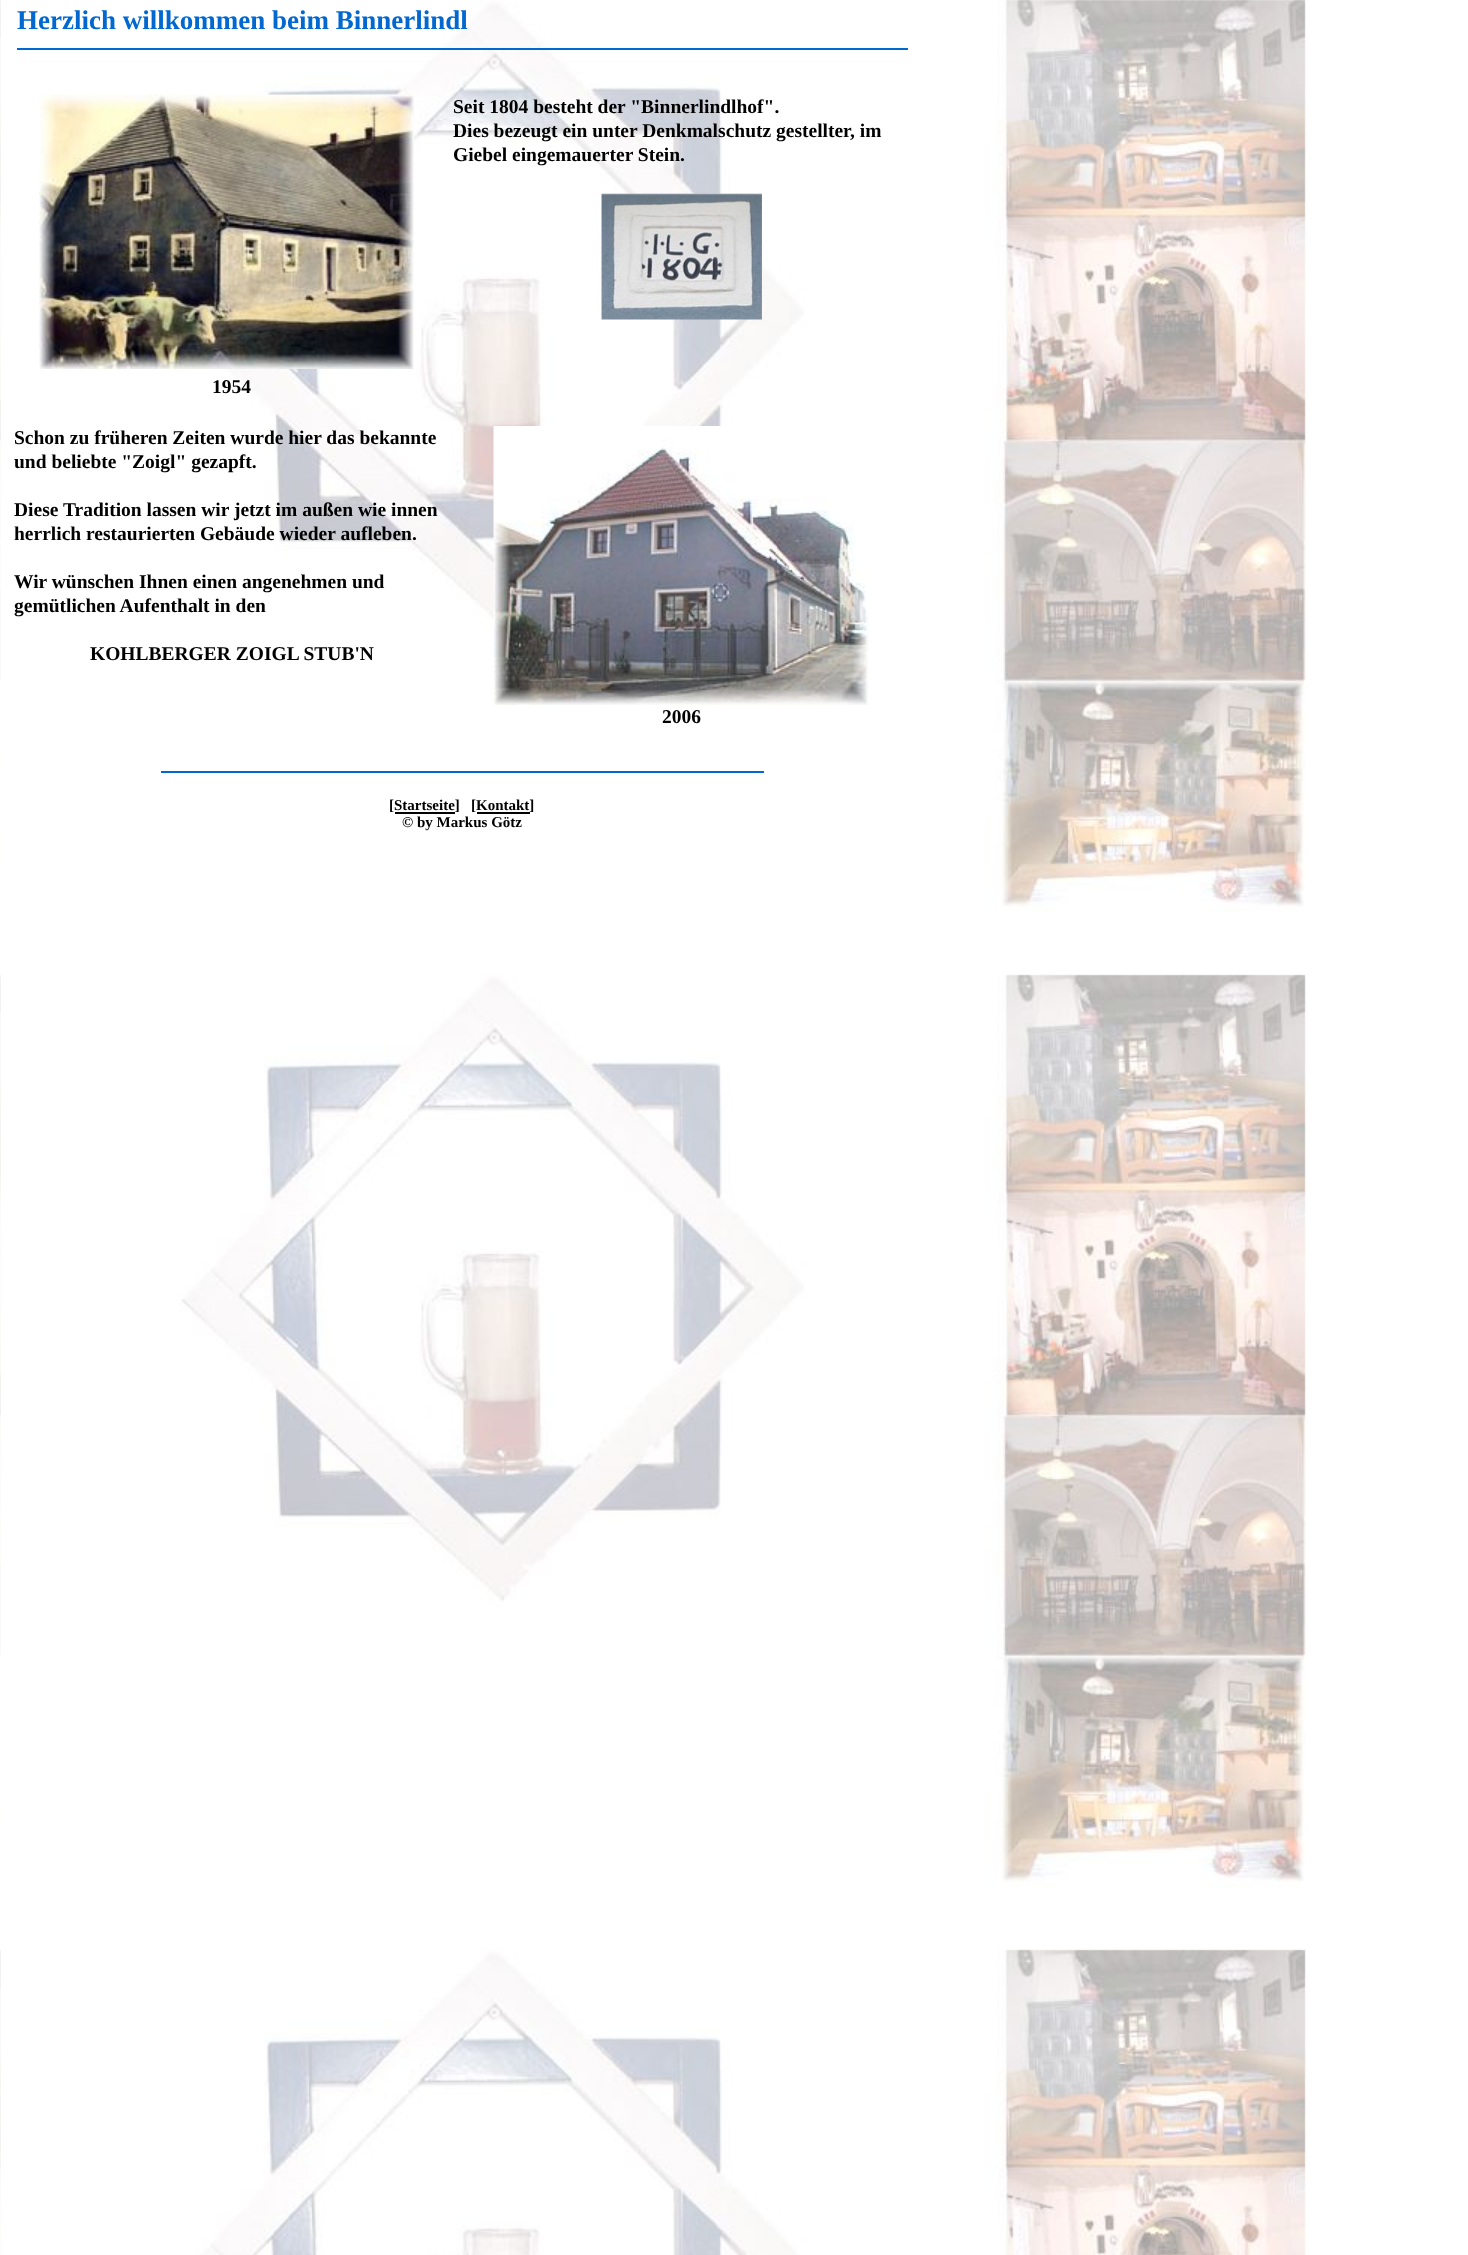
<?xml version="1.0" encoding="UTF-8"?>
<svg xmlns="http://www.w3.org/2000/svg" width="1468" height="2255">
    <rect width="100%" height="100%" fill="#FFFFFF"/>
    <image x="0" y="0" width="1306" height="2255" href="img_01.png"/>
    <text x="17" y="29" font-family="Liberation Serif" font-size="27" font-weight="700" fill="#0068D0">Herzlich willkommen beim Binnerlindl</text>
    <rect x="17" y="48" width="891" height="2" fill="#0068D0"/>
    <text font-family="Liberation Serif" font-size="19.5" font-weight="700" fill="#000000">
        <tspan x="453" y="113">Seit 1804 besteht der "Binnerlindlhof".</tspan>
        <tspan x="453" y="137">Dies bezeugt ein unter Denkmalschutz gestellter, im</tspan>
        <tspan x="453" y="161">Giebel eingemauerter Stein.</tspan>
    </text>
    <image x="601" y="193" width="161" height="127" href="img_02.png"/>
    <image x="39" y="94" width="375" height="275" href="img_03.png"/>
    <text x="212" y="393" font-family="Liberation Serif" font-size="19.5" font-weight="700" fill="#000000">1954</text>
    <text font-family="Liberation Serif" font-size="19.5" font-weight="700" fill="#000000">
        <tspan x="14" y="444">Schon zu früheren Zeiten wurde hier das bekannte</tspan>
        <tspan x="14" y="468">und beliebte "Zoigl" gezapft.</tspan>
    </text>
    <text font-family="Liberation Serif" font-size="19.5" font-weight="700" fill="#000000">
        <tspan x="14" y="516">Diese Tradition lassen wir jetzt im außen wie innen</tspan>
        <tspan x="14" y="540">herrlich restaurierten Gebäude wieder aufleben.</tspan>
    </text>
    <text font-family="Liberation Serif" font-size="19.5" font-weight="700" fill="#000000">
        <tspan x="14" y="588">Wir wünschen Ihnen einen angenehmen und</tspan>
        <tspan x="14" y="612">gemütlichen Aufenthalt in den</tspan>
    </text>
    <text x="90" y="660" font-family="Liberation Serif" font-size="19.5" font-weight="700" fill="#000000">KOHLBERGER ZOIGL STUB'N</text>
    <image x="493" y="426" width="376" height="279" href="img_04.png"/>
    <text x="662" y="723" font-family="Liberation Serif" font-size="19.5" font-weight="700" fill="#000000">2006</text>
    <rect x="161" y="771" width="603" height="2" fill="#0068D0"/>
    <text x="389" y="810" font-family="Liberation Serif" font-size="15" font-weight="700" fill="#000000">[Startseite]</text>
    <rect x="395" y="812" width="60" height="2" fill="#000000"/>
    <text x="471" y="810" font-family="Liberation Serif" font-size="15" font-weight="700" fill="#000000">[Kontakt]</text>
    <rect x="477" y="812" width="53" height="2" fill="#000000"/>
    <text x="402" y="827" font-family="Liberation Serif" font-size="15" font-weight="700" fill="#000000">© by Markus Götz</text>
</svg>
